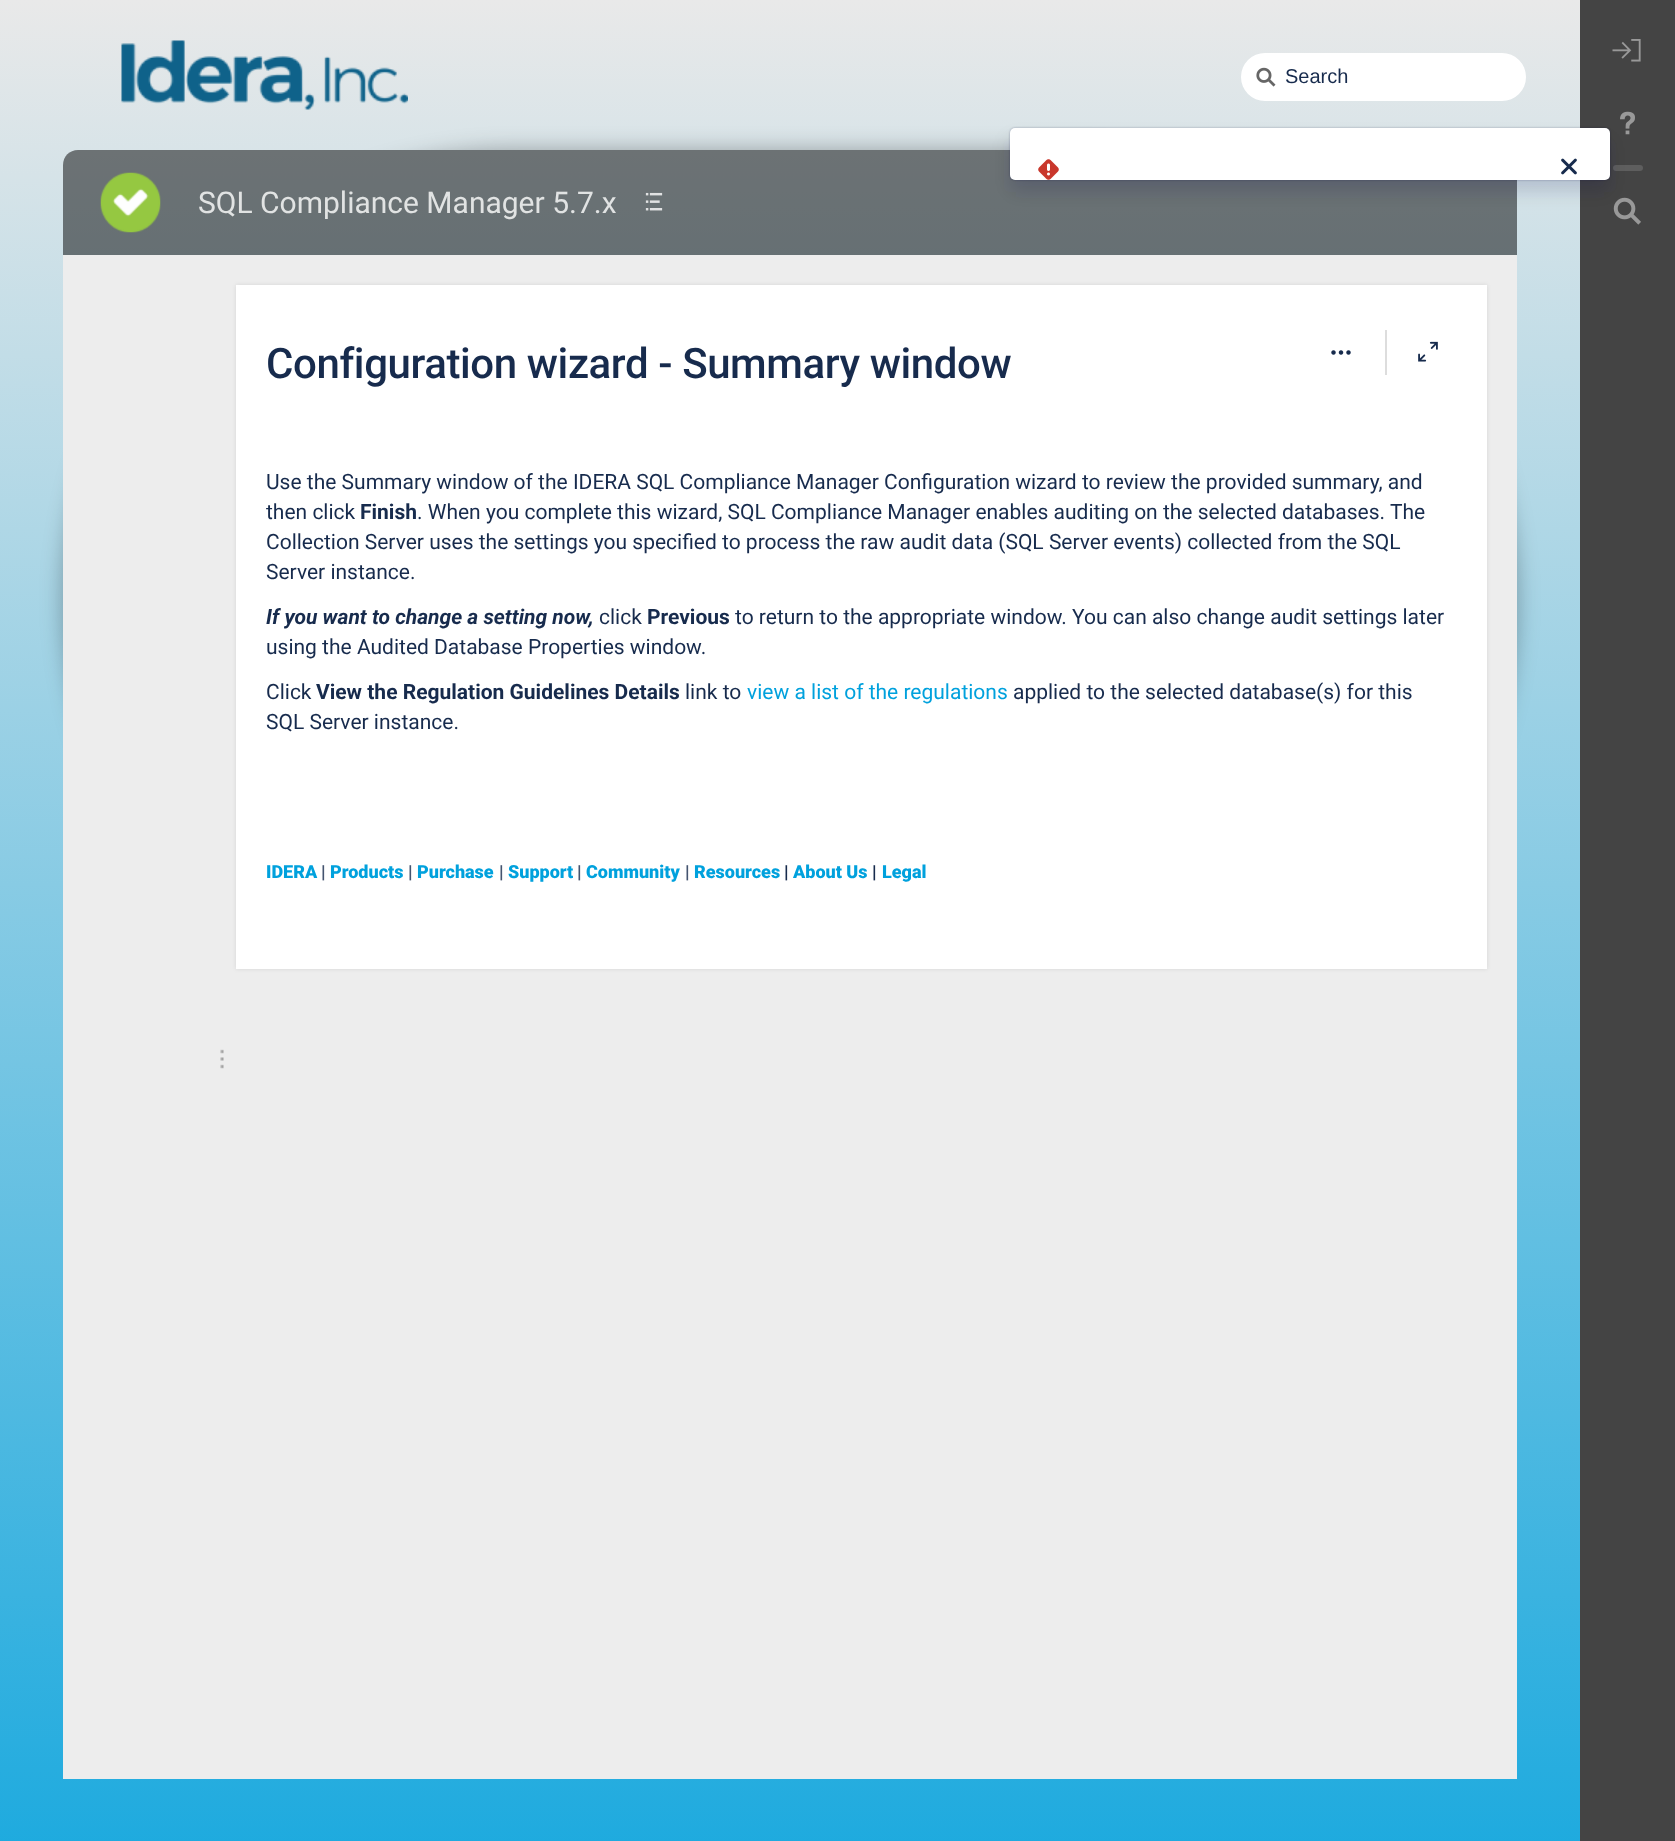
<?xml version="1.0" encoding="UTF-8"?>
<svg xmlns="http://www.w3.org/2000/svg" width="1675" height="1841">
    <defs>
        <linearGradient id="g1" gradientUnits="userSpaceOnUse" x1="790" y1="0" x2="790" y2="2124"><stop offset="0" stop-color="#E9E9E9"/><stop offset="1" stop-color="#00A1DD"/></linearGradient>
        <clipPath id="clip1"><path d="M 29 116 H 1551 V 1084 H 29 Z M 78 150 H 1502 C 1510.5 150 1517 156.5 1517 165 V 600 C 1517 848.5 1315.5 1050 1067 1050 H 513 C 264.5 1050 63 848.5 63 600 V 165 C 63 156.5 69.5 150 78 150 Z" clip-rule="evenodd"/></clipPath>
        <filter id="blur1" x="-50%" y="-200%" width="200%" height="500%"><feGaussianBlur stdDeviation="11"/></filter>
        <filter id="blur2" x="-50%" y="-200%" width="200%" height="500%"><feGaussianBlur stdDeviation="2"/></filter>
        <filter id="blur3" x="-50%" y="-200%" width="200%" height="500%"><feGaussianBlur stdDeviation="1"/></filter>
        <filter id="blur4" x="-50%" y="-200%" width="200%" height="500%"><feGaussianBlur stdDeviation="9"/></filter>
    </defs>
    <rect width="100%" height="100%" fill="#FFFFFF"/>
    <rect x="0" y="0" width="1580" height="1841" fill="url(#g1)"/>
    <image x="121" y="40" width="287" height="70" href="img_01.png"/>
    <rect x="1241" y="53" width="285" height="48" rx="24" fill="#FFFFFF"/>
    <image x="1256" y="67" width="20" height="20" href="img_02.png"/>
    <text x="1285" y="83" font-family="Liberation Sans" font-size="20" fill="#172B4D">Search</text>
    <g clip-path="url(#clip1)">
        <rect x="63" y="150" width="1454" height="900" rx="450" fill="#000000" fill-opacity="0.3" filter="url(#blur1)"/>
    </g>
    <path d="M 78 150 H 1502 C 1510.5 150 1517 156.5 1517 165 V 255 H 63 V 165 C 63 156.5 69.5 150 78 150 Z" fill="#000000" fill-opacity="0.5"/>
    <image x="100" y="172" width="61" height="61" href="img_03.png"/>
    <text x="198" y="213" font-family="Roboto" font-size="30" fill="#E1E3E3">SQL Compliance Manager 5.7.x</text>
    <image x="645" y="192" width="18" height="19" href="img_04.png"/>
    <rect x="63" y="255" width="1454" height="1524" fill="#EDEDED"/>
    <rect x="236" y="285" width="1251" height="684" fill="#000000" fill-opacity="0.1" filter="url(#blur2)"/>
    <rect x="236" y="285" width="1251" height="684" fill="#FFFFFF"/>
    <text x="266" y="378" font-family="Roboto" font-size="42" font-weight="500" letter-spacing="-0.4" fill="#172B4D">Configuration wizard - Summary window</text>
    <image x="1331" y="350" width="20" height="5" href="img_05.png"/>
    <rect x="1385" y="330" width="2" height="45" fill="#DDDDDD"/>
    <image x="1418" y="341" width="20" height="21" href="img_06.png"/>
    <text font-family="Roboto" font-size="21" fill="#172B4D">
        <tspan x="266" y="489">Use the Summary window of the IDERA SQL Compliance Manager Configuration wizard to review the provided summary, and</tspan>
        <tspan x="266" y="519">then click</tspan>
    </text>
    <text x="360" y="519" font-family="Roboto" font-size="21" font-weight="700" fill="#172B4D">Finish</text>
    <text x="417" y="519" font-family="Roboto" font-size="21" fill="#172B4D">. When you complete this wizard, SQL Compliance Manager enables auditing on the selected databases. The</text>
    <text font-family="Roboto" font-size="21" fill="#172B4D">
        <tspan x="266" y="549">Collection Server uses the settings you specified to process the raw audit data (SQL Server events) collected from the SQL</tspan>
        <tspan x="266" y="579">Server instance.</tspan>
    </text>
    <text x="266" y="624" font-family="Roboto" font-size="21" font-weight="700" font-style="italic" fill="#172B4D">If you want to change a setting now,</text>
    <text x="599" y="624" font-family="Roboto" font-size="21" fill="#172B4D">click</text>
    <text x="647" y="624" font-family="Roboto" font-size="21" font-weight="700" fill="#172B4D">Previous</text>
    <text x="735" y="624" font-family="Roboto" font-size="21" fill="#172B4D">to return to the appropriate window. You can also change audit settings later</text>
    <text x="266" y="654" font-family="Roboto" font-size="21" fill="#172B4D">using the Audited Database Properties window.</text>
    <text x="266" y="699" font-family="Roboto" font-size="21" fill="#172B4D">Click</text>
    <text x="316" y="699" font-family="Roboto" font-size="21" font-weight="700" fill="#172B4D">View the Regulation Guidelines Details</text>
    <text x="685" y="699" font-family="Roboto" font-size="21" fill="#172B4D">link to</text>
    <text x="747" y="699" font-family="Roboto" font-size="21" fill="#00A1DD">view a list of the regulations</text>
    <text x="1013" y="699" font-family="Roboto" font-size="21" fill="#172B4D">applied to the selected database(s) for this</text>
    <text x="266" y="729" font-family="Roboto" font-size="21" fill="#172B4D">SQL Server instance.</text>
    <text x="266" y="878" font-family="Roboto" font-size="18" font-weight="900" fill="#00A1DD">IDERA</text>
    <text x="321" y="878" font-family="Roboto" font-size="18" font-weight="900" fill="#44546F">|</text>
    <text x="330" y="878" font-family="Roboto" font-size="18" font-weight="900" fill="#00A1DD">Products</text>
    <text x="408" y="878" font-family="Roboto" font-size="18" font-weight="900" fill="#44546F">|</text>
    <text x="417" y="878" font-family="Roboto" font-size="18" font-weight="900" fill="#00A1DD">Purchase</text>
    <text x="499" y="878" font-family="Roboto" font-size="18" font-weight="900" fill="#44546F">|</text>
    <text x="508" y="878" font-family="Roboto" font-size="18" font-weight="900" fill="#00A1DD">Support</text>
    <text x="577" y="878" font-family="Roboto" font-size="18" font-weight="900" fill="#44546F">|</text>
    <text x="586" y="878" font-family="Roboto" font-size="18" font-weight="900" fill="#00A1DD">Community</text>
    <text x="685" y="878" font-family="Roboto" font-size="18" font-weight="900" fill="#44546F">|</text>
    <text x="694" y="878" font-family="Roboto" font-size="18" font-weight="900" fill="#00A1DD">Resources</text>
    <text x="784" y="878" font-family="Roboto" font-size="18" font-weight="900" fill="#172B4D">|</text>
    <text x="793" y="878" font-family="Roboto" font-size="18" font-weight="900" fill="#00A1DD">About Us</text>
    <text x="872" y="878" font-family="Roboto" font-size="18" font-weight="900" fill="#172B4D">|</text>
    <text x="882" y="878" font-family="Roboto" font-size="18" font-weight="900" fill="#00A1DD">Legal</text>
    <image x="220" y="1049" width="4" height="20" href="img_07.png"/>
    <rect x="1580" y="0" width="95" height="1841" fill="#444444"/>
    <image x="1612" y="39" width="29" height="23" href="img_08.png"/>
    <image x="1620" y="111" width="15" height="24" href="img_09.png"/>
    <rect x="1613" y="165" width="30" height="6" rx="3" fill="#5E5E5E"/>
    <image x="1613" y="197" width="28" height="28" href="img_10.png"/>
    <rect x="1010" y="128" width="600" height="52" rx="5" fill="#091E42" fill-opacity="0.31" filter="url(#blur3)"/>
    <rect x="1010" y="140" width="600" height="52" rx="5" fill="#091E42" fill-opacity="0.15" filter="url(#blur4)"/>
    <rect x="1010" y="128" width="600" height="52" rx="5" fill="#FFFFFF"/>
    <image x="1038" y="159" width="21" height="21" href="img_11.png"/>
    <image x="1561" y="158" width="16" height="17" href="img_12.png"/>
</svg>
